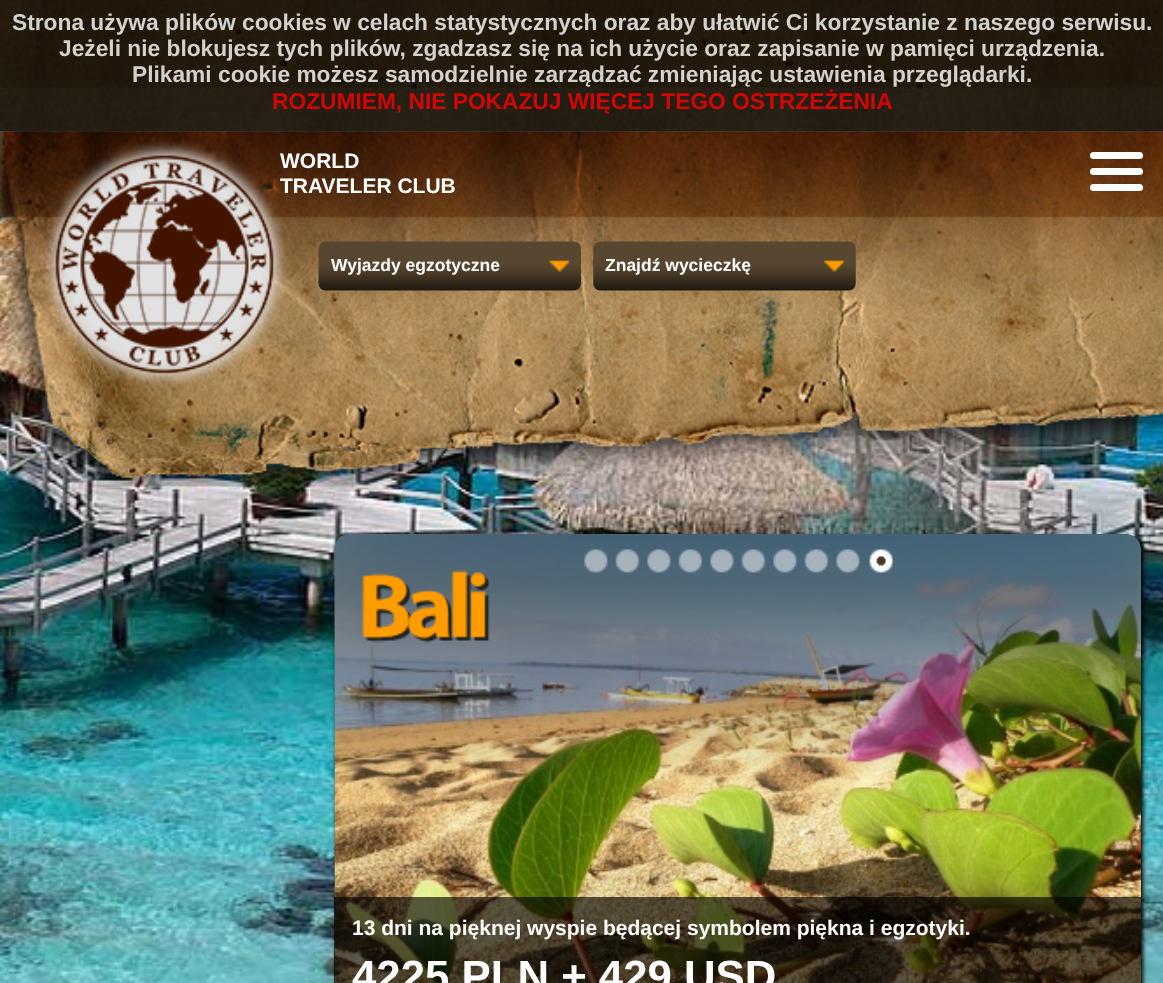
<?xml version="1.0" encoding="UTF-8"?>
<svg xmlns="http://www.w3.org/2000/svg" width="1163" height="983">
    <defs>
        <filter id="blur1" x="-50%" y="-200%" width="200%" height="500%"><feGaussianBlur stdDeviation="2"/></filter>
    </defs>
    <rect width="100%" height="100%" fill="#FFFFFF"/>
    <image x="0" y="0" width="1163" height="132" href="img_01.png"/>
    <rect x="0" y="0" width="1163" height="131" fill="#000000" fill-opacity="0.8"/>
    <text x="12" y="30" font-family="Liberation Sans" font-size="22.75" font-weight="700" fill="#D3D1CE">Strona używa plików cookies w celach statystycznych oraz aby ułatwić Ci korzystanie z naszego serwisu.</text>
    <text x="59" y="56" font-family="Liberation Sans" font-size="22.75" font-weight="700" fill="#D3D1CE">Jeżeli nie blokujesz tych plików, zgadzasz się na ich użycie oraz zapisanie w pamięci urządzenia.</text>
    <text x="132" y="82" font-family="Liberation Sans" font-size="22.75" font-weight="700" fill="#D3D1CE">Plikami cookie możesz samodzielnie zarządzać zmieniając ustawienia przeglądarki.</text>
    <text x="272" y="109" font-family="Liberation Sans" font-size="22.75" font-weight="700" fill="#D30604">ROZUMIEM, NIE POKAZUJ WIĘCEJ TEGO OSTRZEŻENIA</text>
    <image x="0" y="131" width="1163" height="852" href="img_02.png"/>
    <image x="0" y="131" width="1163" height="356" href="img_03.png"/>
    <text font-family="Liberation Sans" font-size="21" font-weight="700" fill="#FFFFFF">
        <tspan x="280" y="168">WORLD</tspan>
        <tspan x="280" y="193">TRAVELER CLUB</tspan>
    </text>
    <rect x="1090" y="152" width="53" height="7" rx="3.5" fill="#FFFFFF"/>
    <rect x="1090" y="168" width="53" height="7" rx="3.5" fill="#FFFFFF"/>
    <rect x="1090" y="184" width="53" height="7" rx="3.5" fill="#FFFFFF"/>
    <image x="318" y="241" width="263" height="50" href="img_04.png"/>
    <text x="331" y="271" font-family="Liberation Sans" font-size="17.5" font-weight="700" fill="#FFFFFF">Wyjazdy egzotyczne</text>
    <image x="593" y="241" width="263" height="50" href="img_05.png"/>
    <text x="605" y="271" font-family="Liberation Sans" font-size="17.5" font-weight="700" fill="#FFFFFF">Znajdź wycieczkę</text>
    <rect x="336" y="537" width="807" height="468" rx="16" fill="#000000" filter="url(#blur1)"/>
    <image x="334" y="534" width="807" height="449" href="img_16.png"/>
    <image x="334" y="534" width="807" height="238" href="img_17.png"/>
    <image x="584" y="549" width="24" height="24" href="img_06.png"/>
    <image x="615" y="549" width="25" height="24" href="img_07.png"/>
    <image x="647" y="549" width="24" height="24" href="img_08.png"/>
    <image x="678" y="549" width="25" height="24" href="img_09.png"/>
    <image x="710" y="549" width="24" height="24" href="img_10.png"/>
    <image x="741" y="549" width="25" height="24" href="img_11.png"/>
    <image x="773" y="549" width="24" height="24" href="img_12.png"/>
    <image x="804" y="549" width="25" height="24" href="img_13.png"/>
    <image x="836" y="549" width="24" height="24" href="img_14.png"/>
    <image x="869" y="549" width="24" height="24" href="img_15.png"/>
    <image x="361" y="570" width="129" height="73" href="img_18.png"/>
    <rect x="334" y="897" width="807" height="86" fill="#000000" fill-opacity="0.63"/>
    <text x="352" y="935" font-family="Liberation Sans" font-size="21" font-weight="700" fill="#FFFFFF">13 dni na pięknej wyspie będącej symbolem piękna i egzotyki.</text>
    <text x="352" y="991" font-family="Liberation Sans" font-size="43.75" font-weight="700" fill="#FFFFFF">4225 PLN + 429 USD</text>
</svg>
